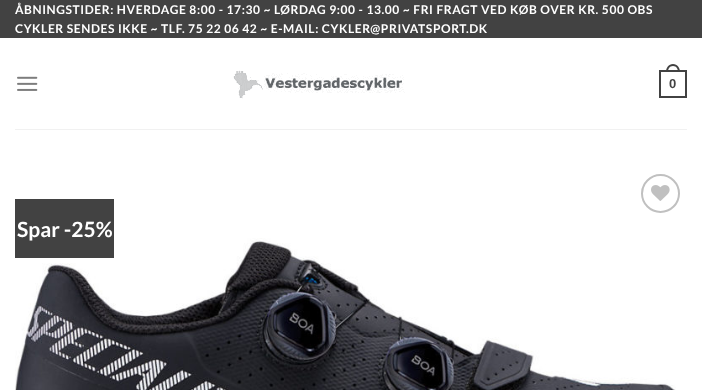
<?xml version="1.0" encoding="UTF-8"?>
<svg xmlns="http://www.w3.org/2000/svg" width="702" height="390">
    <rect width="100%" height="100%" fill="#FFFFFF"/>
    <rect x="0" y="0" width="702" height="38" fill="#424242"/>
    <text font-family="Lato" font-size="12" font-weight="700" letter-spacing="0.6" fill="#FFFFFF">
        <tspan x="15" y="14">ÅBNINGSTIDER: HVERDAGE 8:00 - 17:30 ~ LØRDAG 9:00 - 13.00 ~ FRI FRAGT VED KØB OVER KR. 500 OBS</tspan>
        <tspan x="15" y="33">CYKLER SENDES IKKE ~ TLF. 75 22 06 42 ~ E-MAIL: CYKLER@PRIVATSPORT.DK</tspan>
    </text>
    <image x="17" y="76" width="21" height="15" href="img_01.png"/>
    <image x="233" y="70" width="172" height="29" href="img_02.png"/>
    <rect x="660" y="71" width="26" height="26" fill="none" stroke="#424242" stroke-width="2"/>
    <path d="M 673 64 C 677.5 64 680 68 680 72 H 666 C 666 68 668.5 64 673 64 Z M 673 66 C 676.5 66 678 69 678 72 H 668 C 668 69 669.5 66 673 66 Z" fill="#424242" fill-rule="evenodd"/>
    <text x="669" y="88" font-family="Liberation Sans" font-size="13" font-weight="700" fill="#424242">0</text>
    <rect x="15" y="129" width="672" height="1" fill="#F1F1F1"/>
    <circle cx="660.5" cy="193.5" r="18.5" fill="none" stroke="#C0C0C0" stroke-width="2"/>
    <image x="651" y="185" width="19" height="16" href="img_03.png"/>
    <image x="15" y="238" width="661" height="152" href="img_04.png"/>
    <rect x="15" y="199" width="99" height="59" fill="#424242"/>
    <text x="17" y="237" font-family="Lato" font-size="21" font-weight="700" fill="#FFFFFF">Spar -25%</text>
</svg>
